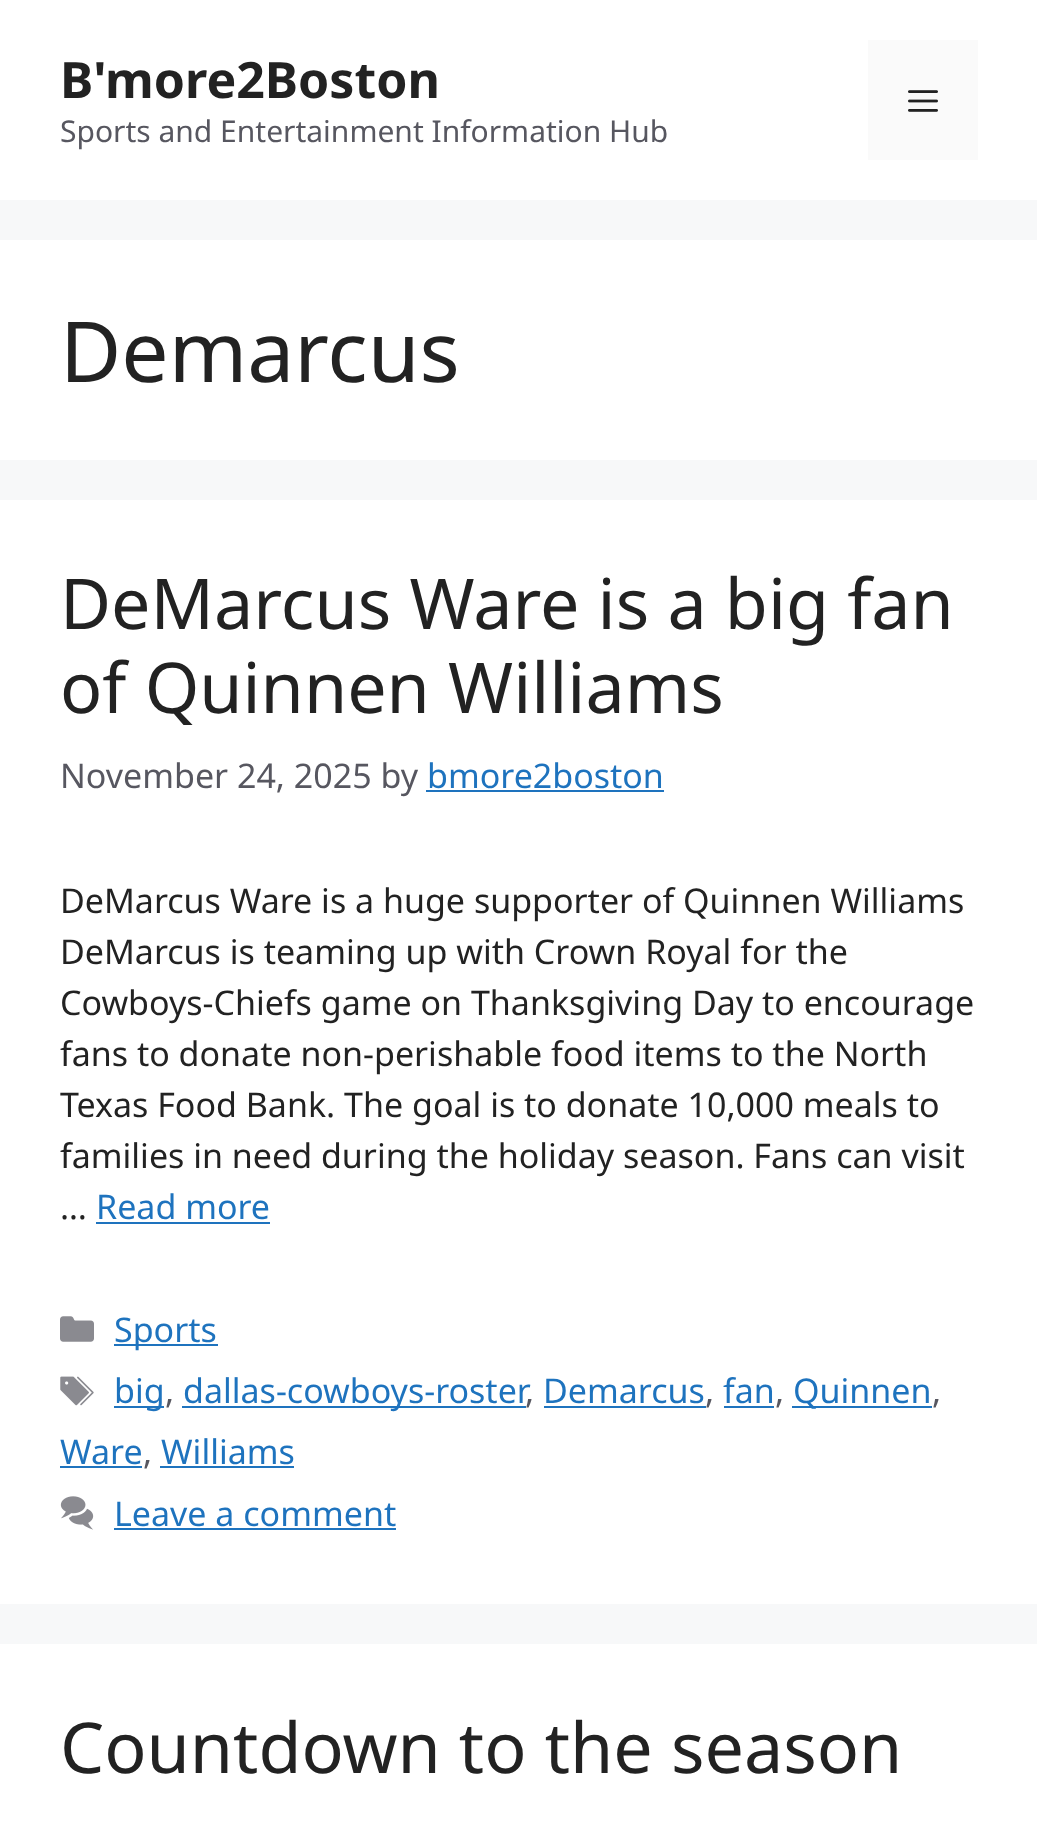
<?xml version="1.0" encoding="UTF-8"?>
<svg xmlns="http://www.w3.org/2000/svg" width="1037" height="1833">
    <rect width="100%" height="100%" fill="#F7F8F9"/>
    <rect x="0" y="0" width="1037" height="200" fill="#FFFFFF"/>
    <text x="60" y="98" font-family="Noto Sans" font-size="50" font-weight="700" fill="#222222">B'more2Boston</text>
    <text x="60" y="142" font-family="Noto Sans" font-size="30" fill="#575760">Sports and Entertainment Information Hub</text>
    <rect x="868" y="40" width="110" height="120" fill="#FAFAFA"/>
    <image x="908" y="90" width="30" height="22" href="img_01.png"/>
    <rect x="0" y="240" width="1037" height="220" fill="#FFFFFF"/>
    <text x="60" y="382" font-family="Noto Sans" font-size="84" fill="#222222">Demarcus</text>
    <rect x="0" y="500" width="1037" height="1104" fill="#FFFFFF"/>
    <text font-family="Noto Sans" font-size="70" fill="#222222">
        <tspan x="60" y="629">DeMarcus Ware is a big fan</tspan>
        <tspan x="60" y="713">of Quinnen Williams</tspan>
    </text>
    <text x="60" y="788" font-family="Noto Sans" font-size="34" fill="#575760">November 24, 2025 by</text>
    <text x="427" y="788" font-family="Noto Sans" font-size="34" fill="#1E73BE">bmore2boston</text>
    <rect x="426" y="790" width="238" height="2" fill="#1E73BE"/>
    <text font-family="Noto Sans" font-size="34" fill="#222222">
        <tspan x="60" y="913">DeMarcus Ware is a huge supporter of Quinnen Williams</tspan>
        <tspan x="60" y="964">DeMarcus is teaming up with Crown Royal for the</tspan>
        <tspan x="60" y="1015">Cowboys-Chiefs game on Thanksgiving Day to encourage</tspan>
        <tspan x="60" y="1066">fans to donate non-perishable food items to the North</tspan>
        <tspan x="60" y="1117">Texas Food Bank. The goal is to donate 10,000 meals to</tspan>
        <tspan x="60" y="1168">families in need during the holiday season. Fans can visit</tspan>
        <tspan x="60" y="1219">…</tspan>
    </text>
    <text x="96" y="1219" font-family="Noto Sans" font-size="34" fill="#1E73BE">Read more</text>
    <rect x="96" y="1222" width="174" height="2" fill="#1E73BE"/>
    <image x="60" y="1316" width="34" height="26" href="img_02.png"/>
    <rect x="114" y="1344" width="104" height="2" fill="#1E73BE"/>
    <text x="114" y="1342" font-family="Noto Sans" font-size="34" fill="#1E73BE">Sports</text>
    <image x="60" y="1376" width="34" height="30" href="img_03.png"/>
    <rect x="114" y="1406" width="50" height="2" fill="#1E73BE"/>
    <text x="114" y="1403" font-family="Noto Sans" font-size="34" fill="#1E73BE">big</text>
    <text x="165" y="1403" font-family="Noto Sans" font-size="34" fill="#575760">,</text>
    <rect x="182" y="1406" width="344" height="2" fill="#1E73BE"/>
    <text x="183" y="1403" font-family="Noto Sans" font-size="34" fill="#1E73BE">dallas-cowboys-roster</text>
    <text x="543" y="1403" font-family="Noto Sans" font-size="34" fill="#1E73BE">Demarcus</text>
    <rect x="544" y="1406" width="162" height="2" fill="#1E73BE"/>
    <text x="723" y="1403" font-family="Noto Sans" font-size="34" fill="#1E73BE">fan</text>
    <rect x="724" y="1406" width="50" height="2" fill="#1E73BE"/>
    <rect x="792" y="1406" width="140" height="2" fill="#1E73BE"/>
    <text x="793" y="1403" font-family="Noto Sans" font-size="34" fill="#1E73BE">Quinnen</text>
    <text x="525" y="1403" font-family="Noto Sans" font-size="34" fill="#575760">,</text>
    <text x="705" y="1403" font-family="Noto Sans" font-size="34" fill="#575760">,</text>
    <text x="775" y="1403" font-family="Noto Sans" font-size="34" fill="#575760">,</text>
    <text x="932" y="1403" font-family="Noto Sans" font-size="34" fill="#575760">,</text>
    <text x="60" y="1464" font-family="Noto Sans" font-size="34" fill="#1E73BE">Ware</text>
    <rect x="60" y="1466" width="82" height="2" fill="#1E73BE"/>
    <text x="143" y="1464" font-family="Noto Sans" font-size="34" fill="#575760">,</text>
    <text x="161" y="1464" font-family="Noto Sans" font-size="34" fill="#1E73BE">Williams</text>
    <rect x="160" y="1466" width="134" height="2" fill="#1E73BE"/>
    <image x="60" y="1496" width="34" height="34" href="img_04.png"/>
    <text x="114" y="1526" font-family="Noto Sans" font-size="34" fill="#1E73BE">Leave a comment</text>
    <rect x="114" y="1528" width="282" height="2" fill="#1E73BE"/>
    <rect x="0" y="1644" width="1037" height="189" fill="#FFFFFF"/>
    <text x="60" y="1773" font-family="Noto Sans" font-size="70" fill="#222222">Countdown to the season</text>
</svg>
